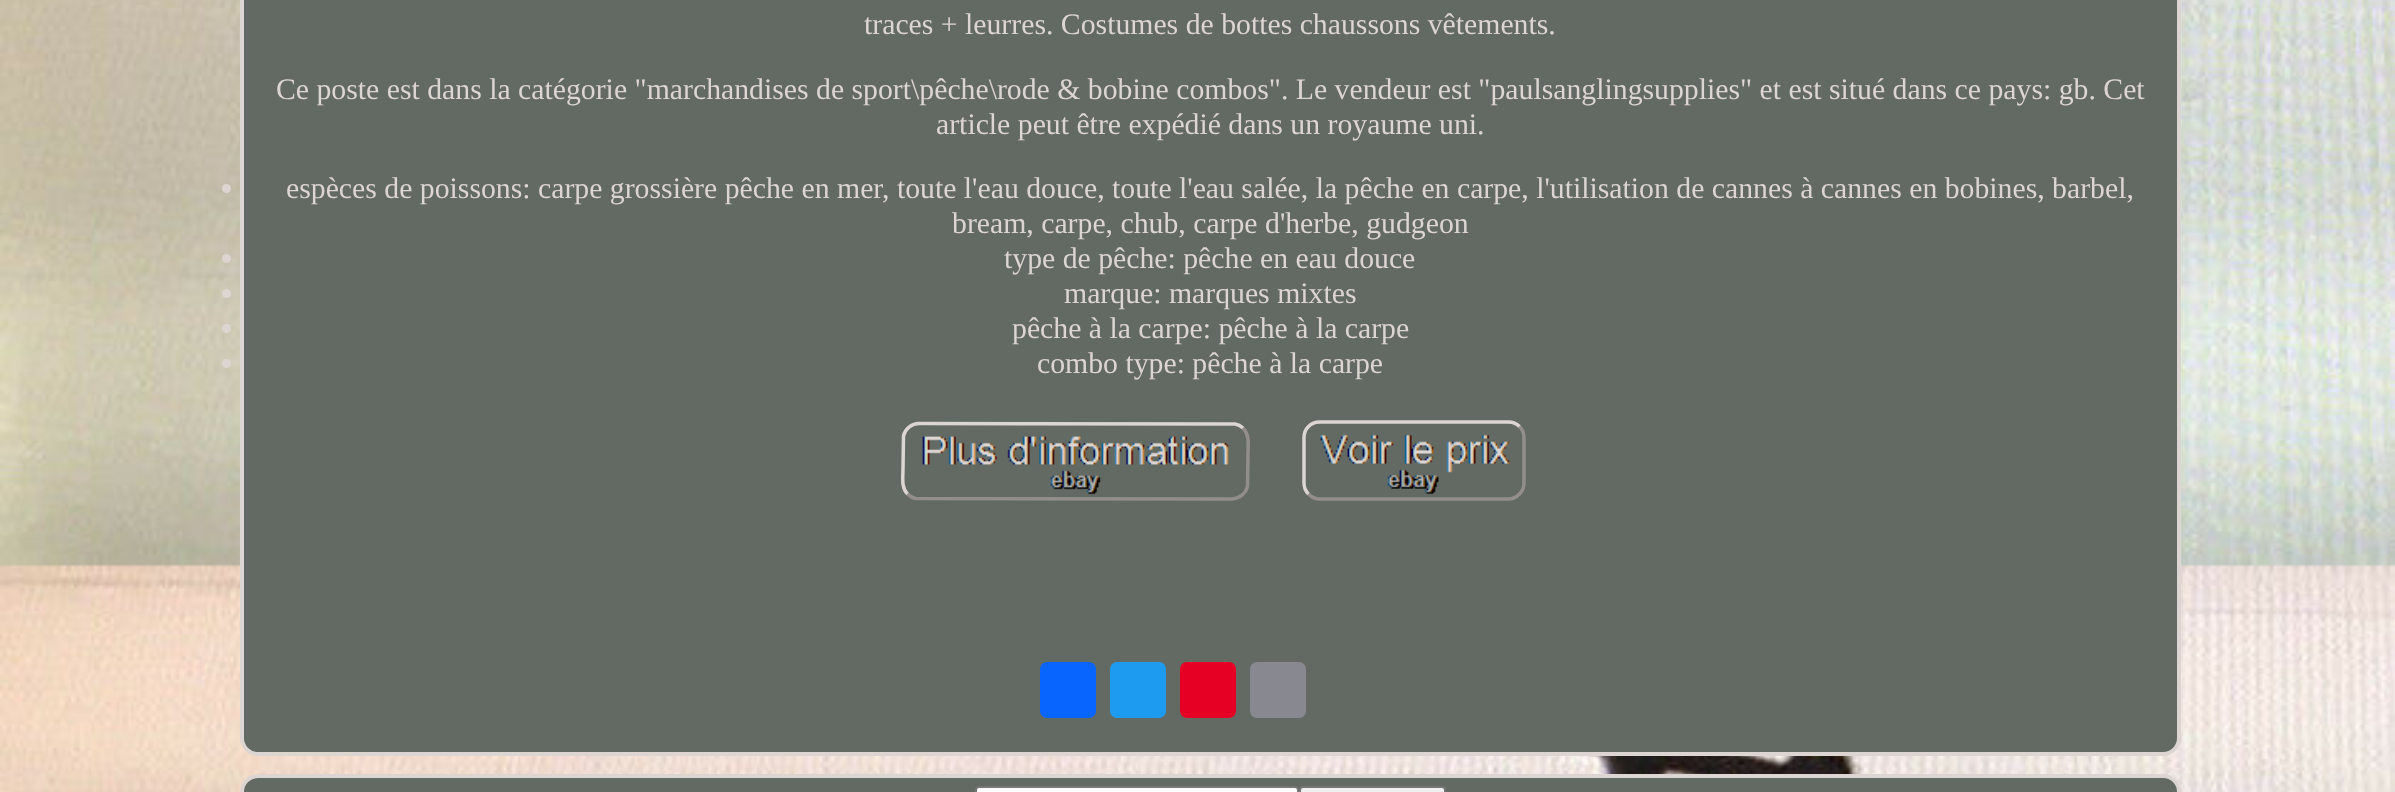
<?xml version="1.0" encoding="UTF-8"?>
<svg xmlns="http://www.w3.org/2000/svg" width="2395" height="792">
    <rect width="100%" height="100%" fill="#FFFFFF"/>
    <image x="0" y="0" width="2395" height="792" href="img_01.png"/>
    <rect x="242" y="-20" width="1937" height="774" rx="16" fill="#636A63" stroke="#DDD5D2" stroke-width="4"/>
    <text x="864" y="34" font-family="Liberation Serif" font-size="29.75" fill="#DDD5D2">traces + leurres. Costumes de bottes chaussons vêtements.</text>
    <text x="276" y="99" font-family="Liberation Serif" font-size="29.75" fill="#DDD5D2">Ce poste est dans la catégorie "marchandises de sport\pêche\rode &amp; bobine combos". Le vendeur est "paulsanglingsupplies" et est situé dans ce pays: gb. Cet</text>
    <text x="936" y="134" font-family="Liberation Serif" font-size="29.75" fill="#DDD5D2">article peut être expédié dans un royaume uni.</text>
    <circle cx="226.5" cy="188.5" r="4.5" fill="#DDD5D2"/>
    <text x="286" y="198" font-family="Liberation Serif" font-size="29.75" fill="#DDD5D2">espèces de poissons: carpe grossière pêche en mer, toute l'eau douce, toute l'eau salée, la pêche en carpe, l'utilisation de cannes à cannes en bobines, barbel,</text>
    <text x="952" y="233" font-family="Liberation Serif" font-size="29.75" fill="#DDD5D2">bream, carpe, chub, carpe d'herbe, gudgeon</text>
    <circle cx="226.5" cy="258.5" r="4.5" fill="#DDD5D2"/>
    <text x="1004" y="268" font-family="Liberation Serif" font-size="29.75" fill="#DDD5D2">type de pêche: pêche en eau douce</text>
    <circle cx="226.5" cy="293.5" r="4.5" fill="#DDD5D2"/>
    <text x="1064" y="303" font-family="Liberation Serif" font-size="29.75" fill="#DDD5D2">marque: marques mixtes</text>
    <circle cx="226.5" cy="328.5" r="4.5" fill="#DDD5D2"/>
    <text x="1012" y="338" font-family="Liberation Serif" font-size="29.75" fill="#DDD5D2">pêche à la carpe: pêche à la carpe</text>
    <circle cx="226.5" cy="363.5" r="4.5" fill="#DDD5D2"/>
    <text x="1037" y="373" font-family="Liberation Serif" font-size="29.75" fill="#DDD5D2">combo type: pêche à la carpe</text>
    <path d="M 1243 428 C 1250 435 1248 445.5 1248 454 L 1247.5 486 C 1246 493.5 1239.5 498.5 1232 499 L 915.5 498.5 C 912.5 498 910 496.5 907.5 494" fill="none" stroke="#938E8C" stroke-width="3.5"/>
    <path d="M 907.5 494 C 901 487.5 903 477 903 468.5 L 903.5 436 C 905 429 911.5 423.5 919 423.5 L 1235 424 C 1238 424.5 1241 426 1243 428" fill="none" stroke="#DDD5D2" stroke-width="3.5"/>
    <image x="922" y="436" width="307" height="59" href="img_02.png"/>
    <path d="M 1519.5 426.5 C 1522.5 429.5 1524 433.5 1524 437.5 V 483 C 1524 487 1522.5 491 1519.5 494 C 1516.5 497 1512.5 499 1508.5 499 H 1319.5 C 1315.5 499 1311.5 497 1308.5 494" fill="none" stroke="#938E8C" stroke-width="3.5"/>
    <path d="M 1308.5 494 C 1305.5 491 1304 487 1304 483 V 437.5 C 1304 433.5 1305.5 429.5 1308.5 426.5 C 1311.5 423.5 1315.5 422 1319.5 422 H 1508.5 C 1512.5 422 1516.5 423.5 1519.5 426.5" fill="none" stroke="#DDD5D2" stroke-width="3.5"/>
    <image x="1320" y="434" width="190" height="60" href="img_03.png"/>
    <rect x="1040" y="662" width="56" height="56" rx="7" fill="#0866FF"/>
    <rect x="1110" y="662" width="56" height="56" rx="7" fill="#1D9BF0"/>
    <rect x="1180" y="662" width="56" height="56" rx="7" fill="#E60023"/>
    <rect x="1250" y="662" width="56" height="56" rx="7" fill="#888990"/>
    <rect x="242" y="776" width="1937" height="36" rx="16" fill="#636A63" stroke="#DDD5D2" stroke-width="4"/>
    <rect x="976" y="787" width="322" height="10" rx="3" fill="#FFFFFF" stroke="#767676" stroke-width="2"/>
    <rect x="1300" y="787" width="145" height="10" rx="3" fill="#EFEFEF" stroke="#767676" stroke-width="2"/>
</svg>
